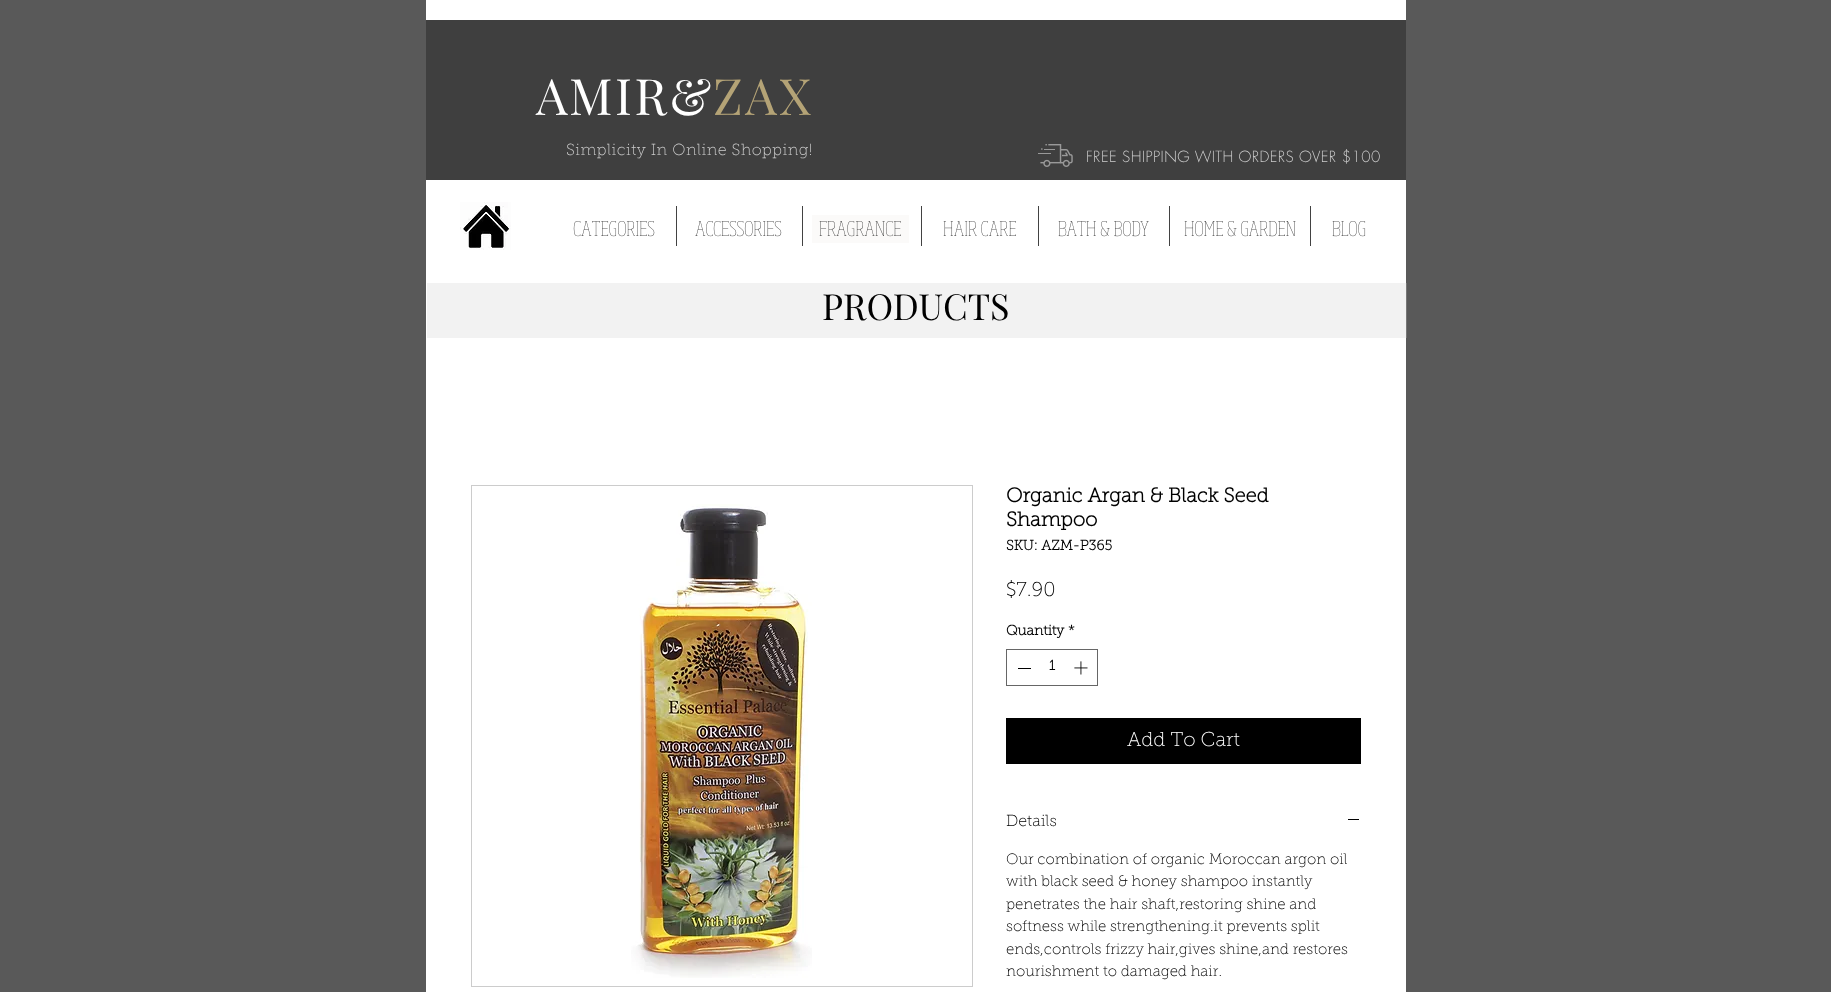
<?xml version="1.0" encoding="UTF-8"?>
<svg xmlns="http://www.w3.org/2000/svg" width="1831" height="992">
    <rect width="100%" height="100%" fill="#595959"/>
    <rect x="426" y="0" width="980" height="992" fill="#FFFFFF"/>
    <rect x="426" y="20" width="980" height="160" fill="#3F3F3F"/>
    <image x="1038" y="144" width="35" height="23" href="img_01.png"/>
    <text x="536" y="115" font-family="Playfair Display" font-size="50" letter-spacing="2.5" fill="#FFFFFF">AMIR&amp;</text>
    <text x="713" y="115" font-family="Playfair Display" font-size="50" letter-spacing="2.5" fill="#B4A376">ZAX</text>
    <text x="566" y="155" font-family="'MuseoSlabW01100'" font-size="16" font-weight="100" letter-spacing="0.5" fill="#CCCCCC">Simplicity In Online Shopping!</text>
    <text x="1086" y="162" font-family="futura" font-size="15" font-weight="300" letter-spacing="0.45" fill="#CCCCCC">FREE SHIPPING WITH ORDERS OVER $100</text>
    <image x="460" y="202" width="51" height="48" href="img_02.png"/>
    <image x="573" y="221" width="82" height="16" href="img_03.png"/>
    <rect x="676" y="206" width="1" height="40" fill="#424242"/>
    <image x="695" y="221" width="87" height="16" href="img_04.png"/>
    <rect x="802" y="206" width="1" height="40" fill="#424242"/>
    <rect x="812" y="215" width="97" height="28" fill="#FBFAF9"/>
    <image x="819" y="221" width="82" height="16" href="img_05.png"/>
    <rect x="921" y="206" width="1" height="40" fill="#424242"/>
    <image x="943" y="221" width="73" height="16" href="img_06.png"/>
    <rect x="1038" y="206" width="1" height="40" fill="#424242"/>
    <image x="1058" y="221" width="91" height="16" href="img_07.png"/>
    <rect x="1169" y="206" width="1" height="40" fill="#424242"/>
    <image x="1184" y="221" width="112" height="16" href="img_08.png"/>
    <rect x="1310" y="206" width="1" height="40" fill="#424242"/>
    <image x="1332" y="221" width="34" height="16" href="img_09.png"/>
    <rect x="427" y="283" width="979" height="55" fill="#F2F2F2"/>
    <text x="822" y="320" font-family="Playfair Display" font-size="36" fill="#000000">PRODUCTS</text>
    <rect x="471.5" y="485.5" width="501" height="501" fill="none" stroke="#CCCCCC"/>
    <image x="631" y="504" width="181" height="474" href="img_10.png"/>
    <text font-family="'MuseoSlabW01100'" font-size="20" font-weight="700" fill="#000000">
        <tspan x="1006" y="502">Organic Argan &amp; Black Seed</tspan>
        <tspan x="1006" y="526">Shampoo</tspan>
    </text>
    <text x="1006" y="550" font-family="'MuseoSlabW01100'" font-size="14" font-weight="700" fill="#000000">SKU: AZM-P365</text>
    <text x="1006" y="596" font-family="'MuseoSlabW01100'" font-size="20" font-weight="100" fill="#000000">$7.90</text>
    <text x="1006" y="635" font-family="'MuseoSlabW01100'" font-size="14" font-weight="700" fill="#000000">Quantity</text>
    <text x="1068" y="635" font-family="'MuseoSlabW01100'" font-size="14" font-weight="700" fill="#000000">*</text>
    <rect x="1006.5" y="649.5" width="91" height="36" fill="none" stroke="#666666"/>
    <rect x="1018" y="668" width="13" height="1" fill="#000000"/>
    <text x="1049" y="670" font-family="'MuseoSlabW01100'" font-size="14" font-weight="700" fill="#000000">1</text>
    <image x="1074" y="661" width="14" height="14" href="img_11.png"/>
    <rect x="1006" y="718" width="355" height="46" fill="#000000"/>
    <text x="1127" y="746" font-family="'MuseoSlabW01100'" font-size="20" font-weight="100" fill="#FFFFFF">Add To Cart</text>
    <text x="1006" y="826" font-family="'MuseoSlabW01100'" font-size="16" font-weight="100" fill="#000000">Details</text>
    <rect x="1348" y="819" width="11" height="1" fill="#000000"/>
    <text font-family="'MuseoSlabW01100'" font-size="15" font-weight="100" fill="#000000">
        <tspan x="1006" y="864">Our combination of organic Moroccan argon oil</tspan>
        <tspan x="1006" y="886">with black seed &amp; honey shampoo instantly</tspan>
        <tspan x="1006" y="909">penetrates the hair shaft,restoring shine and</tspan>
        <tspan x="1006" y="931">softness while strengthening.it prevents split</tspan>
        <tspan x="1006" y="954">ends,controls frizzy hair,gives shine,and restores</tspan>
        <tspan x="1006" y="976">nourishment to damaged hair.</tspan>
    </text>
    <rect x="1406" y="283" width="1" height="55" fill="#777777"/>
</svg>
